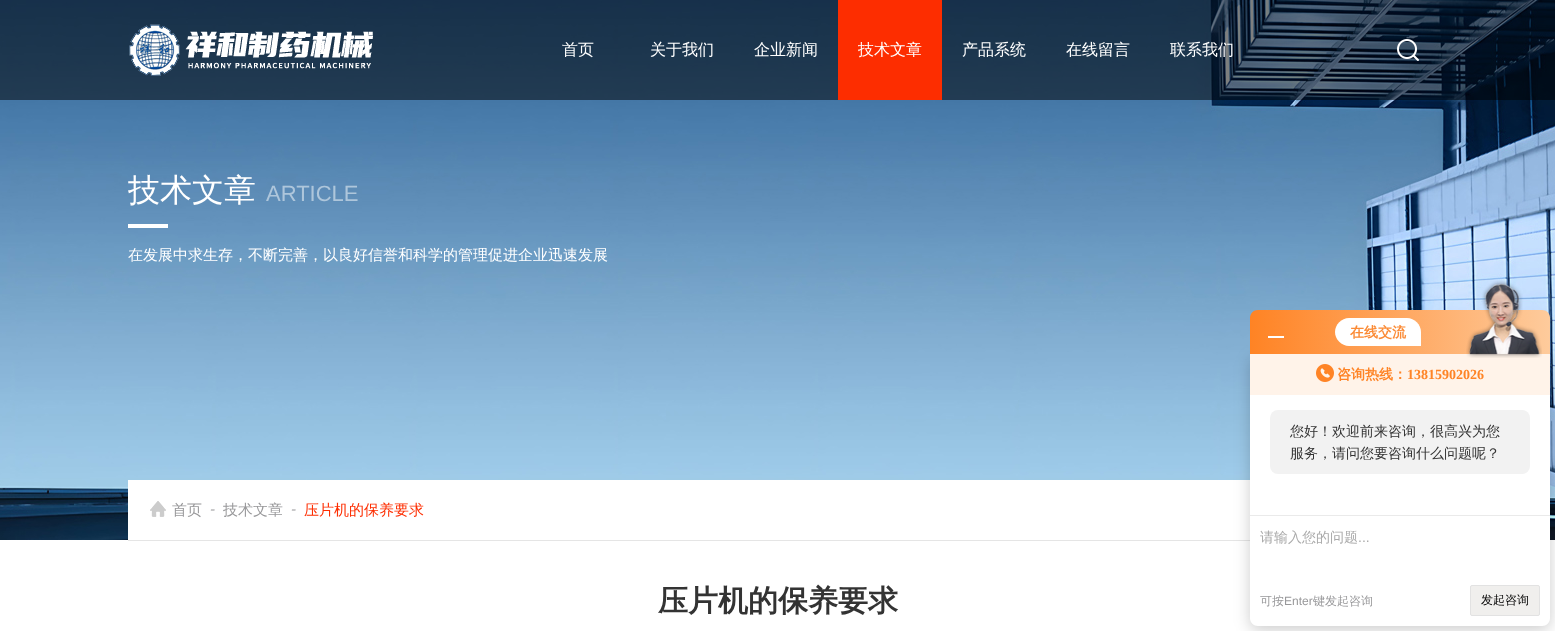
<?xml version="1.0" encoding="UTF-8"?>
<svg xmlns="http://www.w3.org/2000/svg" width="1555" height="631">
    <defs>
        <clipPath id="clip1"><rect x="128" y="170" width="1300" height="40"/></clipPath>
        <filter id="blur1" x="-50%" y="-200%" width="200%" height="500%"><feGaussianBlur stdDeviation="8"/></filter>
        <linearGradient id="g1" gradientUnits="userSpaceOnUse" x1="1250" y1="332" x2="1550" y2="332"><stop offset="0" stop-color="#FF8324"/><stop offset="1" stop-color="#FECB9C"/></linearGradient>
    </defs>
    <rect width="100%" height="100%" fill="#FFFFFF"/>
    <image x="0" y="0" width="1555" height="540" href="img_03.png"/>
    <rect x="0" y="0" width="1555" height="100" fill="#000000" fill-opacity="0.5"/>
    <image x="129" y="24" width="244" height="52" href="img_01.png"/>
    <text x="562" y="55" font-family="WenQuanYi Zen Hei" font-size="16" font-weight="500" fill="#FFFFFF">首页</text>
    <text x="650" y="55" font-family="WenQuanYi Zen Hei" font-size="16" font-weight="500" fill="#FFFFFF">关于我们</text>
    <text x="754" y="55" font-family="WenQuanYi Zen Hei" font-size="16" font-weight="500" fill="#FFFFFF">企业新闻</text>
    <rect x="838" y="0" width="104" height="100" fill="#FD2D00"/>
    <text x="858" y="55" font-family="WenQuanYi Zen Hei" font-size="16" font-weight="500" fill="#FFFFFF">技术文章</text>
    <text x="962" y="55" font-family="WenQuanYi Zen Hei" font-size="16" font-weight="500" fill="#FFFFFF">产品系统</text>
    <text x="1066" y="55" font-family="WenQuanYi Zen Hei" font-size="16" font-weight="500" fill="#FFFFFF">在线留言</text>
    <text x="1170" y="55" font-family="WenQuanYi Zen Hei" font-size="16" font-weight="500" fill="#FFFFFF">联系我们</text>
    <image x="1397" y="39" width="22" height="22" href="img_02.png"/>
    <g clip-path="url(#clip1)">
        <text x="128" y="201" font-family="WenQuanYi Zen Hei" font-size="32" font-weight="500" fill="#FFFFFF">技术文章</text>
    </g>
    <text x="266" y="201" font-family="Liberation Sans" font-size="22" fill="#AEC6DB">ARTICLE</text>
    <rect x="128" y="224" width="40" height="4" fill="#FFFFFF"/>
    <text x="128" y="260" font-family="WenQuanYi Zen Hei" font-size="15" font-weight="500" fill="#FFFFFF">在发展中求生存，不断完善，以良好信誉和科学的管理促进企业迅速发展</text>
    <rect x="128" y="480" width="1122" height="60" fill="#FFFFFF"/>
    <rect x="128" y="540" width="1122" height="1" fill="#E5E5E5"/>
    <image x="150" y="501" width="16" height="16" href="img_04.png"/>
    <text x="172" y="515" font-family="WenQuanYi Zen Hei" font-size="15" font-weight="500" fill="#98989A">首页</text>
    <text x="210" y="514" font-family="Liberation Sans" font-size="15" font-style="italic" fill="#98989A">-</text>
    <text x="223" y="515" font-family="WenQuanYi Zen Hei" font-size="15" font-weight="500" fill="#98989A">技术文章</text>
    <text x="291" y="514" font-family="Liberation Sans" font-size="15" font-style="italic" fill="#98989A">-</text>
    <text x="304" y="515" font-family="WenQuanYi Zen Hei" font-size="15" font-weight="500" fill="#FD2D00">压片机的保养要求</text>
    <rect x="1250" y="358" width="300" height="272" rx="8" fill="#000000" fill-opacity="0.2" filter="url(#blur1)"/>
    <path d="M 1258 310 H 1542 C 1546.5 310 1550 313.5 1550 318 V 354 H 1250 V 318 C 1250 313.5 1253.5 310 1258 310 Z" fill="url(#g1)"/>
    <rect x="1268" y="336" width="16" height="2" fill="#FFFFFF"/>
    <path d="M 1349 318 H 1407 C 1414.5 318 1421 324.5 1421 332 V 346 H 1349 C 1341.5 346 1335 339.5 1335 332 C 1335 324.5 1341.5 318 1349 318 Z" fill="#FFFFFF"/>
    <text x="1350" y="337" font-family="WenQuanYi Zen Hei" font-size="14" font-weight="700" fill="#FB8B36">在线交流</text>
    <path d="M 1250 354 H 1550 V 618 C 1550 622.5 1546.5 626 1542 626 H 1258 C 1253.5 626 1250 622.5 1250 618 Z" fill="#FFFFFF"/>
    <rect x="1250" y="354" width="300" height="41" fill="#FFF3E9"/>
    <image x="1466" y="280" width="76" height="78" href="img_05.png"/>
    <image x="1316" y="364" width="18" height="18" href="img_06.png"/>
    <text x="1337" y="379" font-family="WenQuanYi Zen Hei" font-size="14" font-weight="700" fill="#FF8426">咨询热线：</text>
    <text x="1407" y="379" font-family="Liberation Serif" font-size="14" font-weight="700" fill="#FF8426">13815902026</text>
    <rect x="1270" y="410" width="260" height="64" rx="8" fill="#F2F2F2"/>
    <text font-family="WenQuanYi Zen Hei" font-size="14" font-weight="500" fill="#333333">
        <tspan x="1290" y="436">您好！欢迎前来咨询，很高兴为您</tspan>
        <tspan x="1290" y="458">服务，请问您要咨询什么问题呢？</tspan>
    </text>
    <rect x="1250" y="515" width="300" height="1" fill="#EAEAEA"/>
    <text x="1260" y="542" font-family="WenQuanYi Zen Hei" font-size="14" font-weight="500" fill="#AAAAAA">请输入您的问题</text>
    <text x="1358" y="542" font-family="Liberation Sans" font-size="14" fill="#AAAAAA">...</text>
    <text x="1260" y="605" font-family="WenQuanYi Zen Hei" font-size="12" font-weight="500" fill="#98989A">可按</text>
    <text x="1284" y="605" font-family="Liberation Sans" font-size="12" fill="#98989A">Enter</text>
    <text x="1313" y="605" font-family="WenQuanYi Zen Hei" font-size="12" font-weight="500" fill="#98989A">键发起咨询</text>
    <rect x="1470.5" y="585.5" width="69" height="30" rx="1.5" fill="#F0EFED" stroke="#E2E2E2"/>
    <text x="1481" y="604" font-family="WenQuanYi Zen Hei" font-size="12" font-weight="500" fill="#000000">发起咨询</text>
    <text x="658" y="611" font-family="WenQuanYi Zen Hei" font-size="30" font-weight="700" fill="#333333">压片机的保养要求</text>
</svg>
